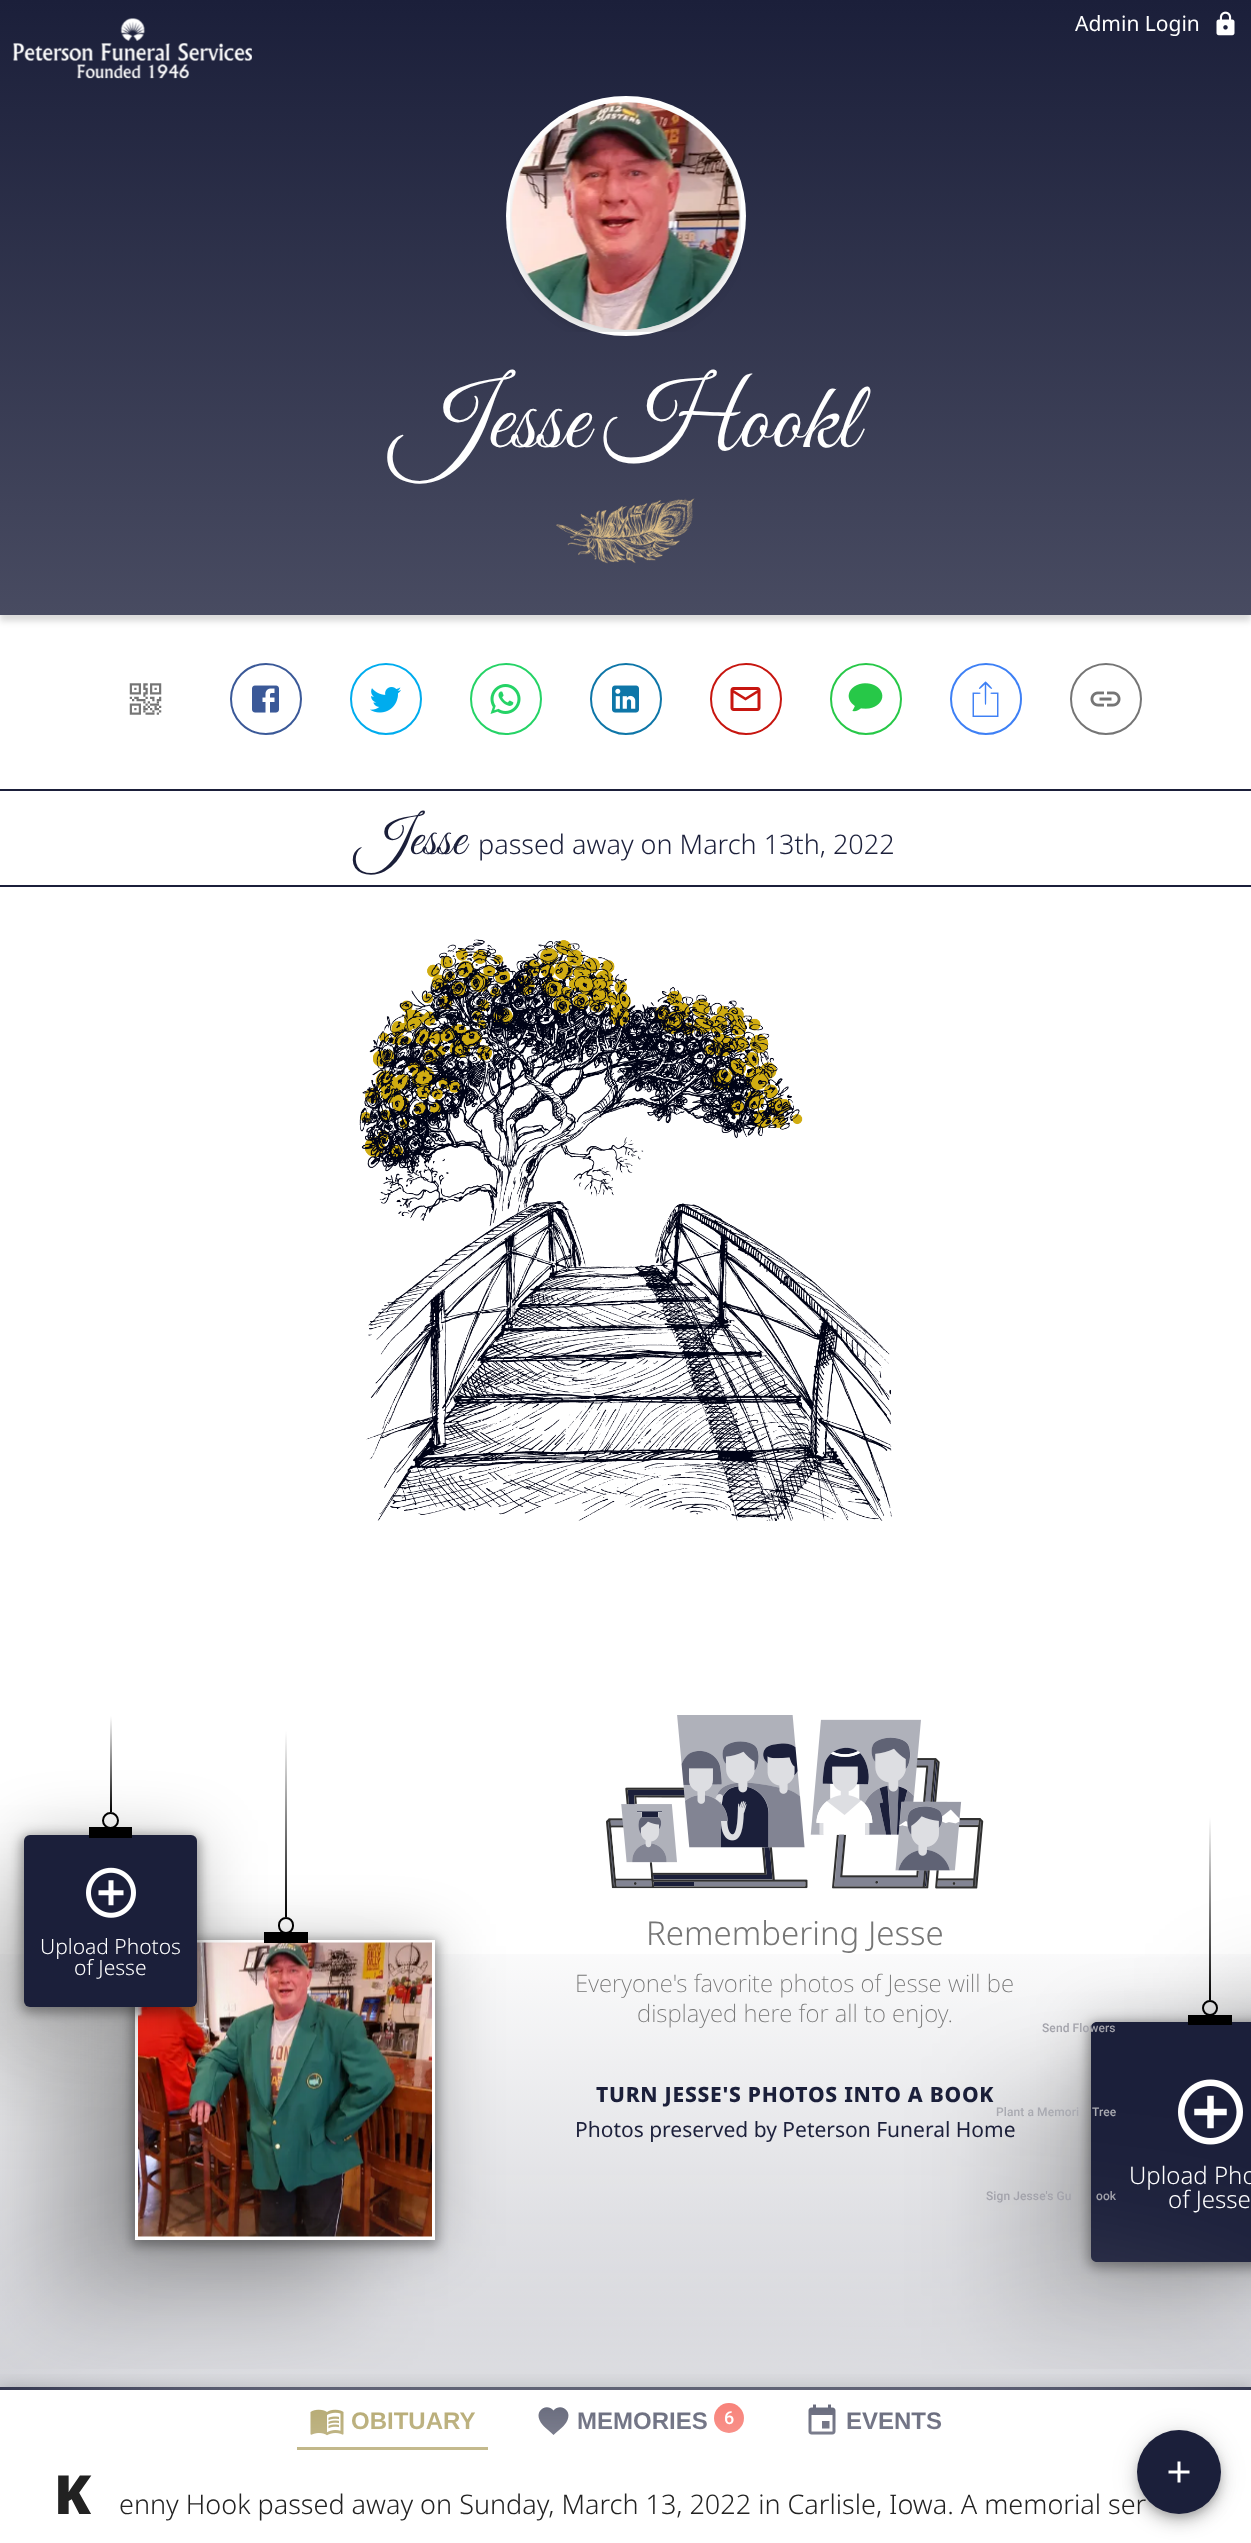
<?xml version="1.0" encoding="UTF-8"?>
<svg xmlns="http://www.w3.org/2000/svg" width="1251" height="2543">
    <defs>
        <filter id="blur1" x="-50%" y="-200%" width="200%" height="500%"><feGaussianBlur stdDeviation="3"/></filter>
        <linearGradient id="g1" gradientUnits="userSpaceOnUse" x1="626" y1="0" x2="626" y2="615"><stop offset="0" stop-color="#1B1F3A"/><stop offset="1" stop-color="#484B61"/></linearGradient>
        <clipPath id="clip1"><rect x="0" y="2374" width="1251" height="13"/></clipPath>
        <filter id="blur2" x="-50%" y="-200%" width="200%" height="500%"><feGaussianBlur stdDeviation="9"/></filter>
        <linearGradient id="g2" gradientUnits="userSpaceOnUse" x1="625" y1="1589" x2="626" y2="2387"><stop offset="0.4" stop-color="#1B1F3A" stop-opacity="0"/><stop offset="1" stop-color="#1B1F3A" stop-opacity="0.22"/></linearGradient>
        <filter id="blur3" x="-50%" y="-200%" width="200%" height="500%"><feGaussianBlur stdDeviation="33"/></filter>
        <clipPath id="clip2"><rect x="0" y="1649" width="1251" height="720"/></clipPath>
        <filter id="blur4" x="-50%" y="-200%" width="200%" height="500%"><feGaussianBlur stdDeviation="48"/></filter>
        <linearGradient id="g3" gradientUnits="userSpaceOnUse" x1="286" y1="1731" x2="286" y2="1917"><stop offset="0" stop-color="#FFFFFF"/><stop offset="1" stop-color="#000000"/></linearGradient>
        <filter id="blur5" x="-50%" y="-200%" width="200%" height="500%"><feGaussianBlur stdDeviation="6"/></filter>
        <linearGradient id="g4" gradientUnits="userSpaceOnUse" x1="110" y1="1716" x2="110" y2="1812"><stop offset="0" stop-color="#FFFFFF"/><stop offset="1" stop-color="#000000"/></linearGradient>
        <linearGradient id="g5" gradientUnits="userSpaceOnUse" x1="1210" y1="1817" x2="1210" y2="2000"><stop offset="0" stop-color="#FFFFFF"/><stop offset="1" stop-color="#000000"/></linearGradient>
        <filter id="blur6" x="-50%" y="-200%" width="200%" height="500%"><feGaussianBlur stdDeviation="150"/></filter>
        <filter id="blur7" x="-50%" y="-200%" width="200%" height="500%"><feGaussianBlur stdDeviation="13.5"/></filter>
        <filter id="blur8" x="-50%" y="-200%" width="200%" height="500%"><feGaussianBlur stdDeviation="7.5"/></filter>
        <filter id="blur9" x="-50%" y="-200%" width="200%" height="500%"><feGaussianBlur stdDeviation="4"/></filter>
    </defs>
    <rect width="100%" height="100%" fill="#FFFFFF"/>
    <rect x="0" y="6" width="1251" height="615" fill="#000000" fill-opacity="0.15" filter="url(#blur1)"/>
    <rect x="0" y="0" width="1251" height="615" fill="url(#g1)"/>
    <image x="13" y="18" width="239" height="61" href="img_01.png"/>
    <text x="1075" y="31" font-family="Noto Sans" font-size="21" fill="#FFFFFF">Admin Login</text>
    <image x="1216" y="11" width="19" height="25" href="img_02.png"/>
    <circle cx="626" cy="216" r="120" fill="#FFFFFF"/>
    <image x="510" y="102" width="231" height="230" href="img_03.png"/>
    <text x="393" y="447" font-family="Great Vibes" font-size="96" fill="#FFFFFF">Jesse Hookl</text>
    <image x="556" y="498" width="139" height="66" href="img_04.png"/>
    <image x="129" y="683" width="33" height="32" href="img_05.png"/>
    <circle cx="266" cy="699" r="35" fill="none" stroke="#3B5998" stroke-width="2"/>
    <image x="252" y="685" width="27" height="28" href="img_06.png"/>
    <circle cx="386" cy="699" r="35" fill="none" stroke="#00ACEE" stroke-width="2"/>
    <image x="370" y="687" width="31" height="26" href="img_07.png"/>
    <circle cx="506" cy="699" r="35" fill="none" stroke="#25D366" stroke-width="2"/>
    <image x="490" y="684" width="31" height="30" href="img_08.png"/>
    <circle cx="626" cy="699" r="35" fill="none" stroke="#0E76A8" stroke-width="2"/>
    <image x="612" y="685" width="27" height="28" href="img_09.png"/>
    <circle cx="746" cy="699" r="35" fill="none" stroke="#C71610" stroke-width="2"/>
    <image x="730" y="687" width="31" height="24" href="img_10.png"/>
    <circle cx="866" cy="699" r="35" fill="none" stroke="#27C848" stroke-width="2"/>
    <image x="848" y="683" width="35" height="29" href="img_11.png"/>
    <circle cx="986" cy="699" r="35" fill="none" stroke="#3E80F5" stroke-width="2"/>
    <image x="972" y="681" width="27" height="36" href="img_12.png"/>
    <circle cx="1106" cy="699" r="35" fill="none" stroke="#757575" stroke-width="2"/>
    <image x="1090" y="691" width="31" height="16" href="img_13.png"/>
    <rect x="0" y="789" width="1251" height="2" fill="#1B1F3A"/>
    <rect x="0" y="885" width="1251" height="2" fill="#1B1F3A"/>
    <text x="356" y="854" font-family="Great Vibes" font-size="54" fill="#1B1F3A">Jesse</text>
    <text x="478" y="854" font-family="Noto Sans" font-size="27" font-weight="300" fill="#1B1F3A">passed away on March 13th, 2022</text>
    <image x="359" y="939" width="533" height="582" href="img_14.png"/>
    <g clip-path="url(#clip1)">
        <rect x="-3" y="2387" width="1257" height="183" fill="#000000" fill-opacity="0.25" filter="url(#blur2)"/>
    </g>
    <rect x="0" y="1954" width="1251" height="433" fill="url(#g2)"/>
    <rect x="0" y="2387" width="1251" height="3" fill="#1B1F3A"/>
    <rect x="135" y="1946" width="300" height="300" fill="#000000" fill-opacity="0.25" filter="url(#blur3)"/>
    <g clip-path="url(#clip2)">
        <rect x="45" y="2006" width="300" height="300" fill="#000000" fill-opacity="0.25" filter="url(#blur4)"/>
    </g>
    <rect x="285" y="1731" width="2" height="186" fill="url(#g3)"/>
    <rect x="132" y="1940" width="306" height="306" fill="#000000" fill-opacity="0.35" filter="url(#blur5)"/>
    <rect x="135" y="1940" width="300" height="300" fill="#FFFFFF"/>
    <image x="138" y="1942" width="294" height="295" href="img_15.png"/>
    <rect x="264" y="1932" width="44" height="11" fill="#000000"/>
    <rect x="279" y="1918" width="14" height="15" rx="7" fill="none" stroke="#000000" stroke-width="2"/>
    <image x="606" y="1715" width="378" height="174" href="img_16.png"/>
    <text x="646" y="1945" font-family="Noto Sans" font-size="33" font-weight="300" fill="#757575">Remembering Jesse</text>
    <text x="575" y="1992" font-family="Noto Sans" font-size="24" font-weight="200" fill="#757575">Everyone's favorite photos of Jesse will be</text>
    <text x="637" y="2022" font-family="Noto Sans" font-size="24" font-weight="200" fill="#757575">displayed here for all to enjoy.</text>
    <text x="596" y="2102" font-family="Noto Sans" font-size="21" font-weight="800" letter-spacing="0.75" fill="#1B1F3A">TURN JESSE'S PHOTOS INTO A BOOK</text>
    <text x="575" y="2137" font-family="Noto Sans" font-size="21" fill="#1B1F3A">Photos preserved by Peterson Funeral Home</text>
    <rect x="24" y="1841" width="173" height="172" rx="6" fill="#000000" fill-opacity="0.25" filter="url(#blur3)"/>
    <rect x="-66" y="1901" width="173" height="172" rx="6" fill="#000000" fill-opacity="0.15" filter="url(#blur4)"/>
    <rect x="110" y="1716" width="2" height="96" fill="url(#g4)"/>
    <rect x="21" y="1835" width="179" height="178" rx="9" fill="#000000" fill-opacity="0.35" filter="url(#blur5)"/>
    <rect x="24" y="1835" width="173" height="172" rx="6" fill="#1B1F3A"/>
    <rect x="89" y="1827" width="43" height="11" fill="#000000"/>
    <circle cx="110.5" cy="1820.5" r="7.5" fill="none" stroke="#000000" stroke-width="2"/>
    <image x="86" y="1867" width="50" height="51" href="img_17.png"/>
    <text x="40" y="1954" font-family="Noto Sans" font-size="21" font-weight="300" fill="#FFFFFF">Upload Photos</text>
    <text x="74" y="1975" font-family="Noto Sans" font-size="21" font-weight="300" fill="#FFFFFF">of Jesse</text>
    <rect x="1214" y="1988" width="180" height="165" rx="6" fill="#000000" fill-opacity="0.15" filter="url(#blur4)"/>
    <rect x="1091" y="2028" width="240" height="240" rx="6" fill="#000000" fill-opacity="0.25" filter="url(#blur3)"/>
    <g clip-path="url(#clip2)">
        <rect x="1001" y="2088" width="240" height="240" rx="6" fill="#000000" fill-opacity="0.15" filter="url(#blur4)"/>
    </g>
    <rect x="1209" y="1817" width="2" height="183" fill="url(#g5)"/>
    <rect x="1088" y="2022" width="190" height="246" rx="9" fill="#000000" fill-opacity="0.35" filter="url(#blur5)"/>
    <path d="M 1097 2022 H 1251 V 2262 H 1097 C 1093.5 2262 1091 2259.5 1091 2256 V 2028 C 1091 2024.5 1093.5 2022 1097 2022 Z" fill="#1B1F3A"/>
    <rect x="1188" y="2015" width="44" height="10" fill="#000000"/>
    <circle cx="1210" cy="2008" r="7" fill="none" stroke="#000000" stroke-width="2"/>
    <image x="1178" y="2079" width="65" height="66" href="img_18.png"/>
    <text x="1129" y="2184" font-family="Noto Sans" font-size="24" font-weight="300" fill="#FFFFFF">Upload Pho</text>
    <text x="1168" y="2208" font-family="Noto Sans" font-size="24" font-weight="300" fill="#FFFFFF">of Jesse</text>
    <image x="310" y="2409" width="34" height="27" href="img_19.png"/>
    <text x="351" y="2429" font-family="Liberation Sans" font-size="24" font-weight="700" fill="#92802F">OBITUARY</text>
    <path d="M 553.5 2435 C 549 2430.5 542 2426 539.5 2420 C 535 2410 547 2403 553.5 2410.5 C 560 2403 572 2410 567.5 2420 C 565 2426 558.5 2430.5 553.5 2435 Z" fill="#1B1F3A"/>
    <text x="577" y="2429" font-family="Liberation Sans" font-size="24" font-weight="700" fill="#1B1F3A">MEMORIES</text>
    <circle cx="729" cy="2418" r="15" fill="#F44336"/>
    <text x="724" y="2424" font-family="Roboto" font-size="18" font-weight="500" letter-spacing="1" fill="#FFFFFF">6</text>
    <image x="808" y="2404" width="28" height="31" href="img_20.png"/>
    <text x="846" y="2429" font-family="Liberation Sans" font-size="24" font-weight="700" fill="#1B1F3A">EVENTS</text>
    <rect x="297" y="2447" width="191" height="3" fill="#92802F"/>
    <rect x="48" y="2465" width="1155" height="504" fill="#FFFFFF" filter="url(#blur6)"/>
    <text x="54" y="2514" font-family="Noto Sans" font-size="54" font-weight="900" fill="#222222">K</text>
    <text x="119" y="2514" font-family="Noto Sans" font-size="27" font-weight="300" fill="#222222">enny Hook passed away on Sunday, March 13, 2022 in Carlisle, Iowa. A memorial ser</text>
    <text x="1042" y="2032" font-family="Roboto" font-size="12" font-weight="500" letter-spacing="0.1" fill="#A3A3AB">Send Flowers</text>
    <text x="996" y="2116" font-family="Roboto" font-size="12" font-weight="500" letter-spacing="0.1" fill="#A9AAB1">Plant a Memori</text>
    <text x="1092" y="2116" font-family="Roboto" font-size="12" font-weight="500" letter-spacing="0.1" fill="#A9AAB1">Tree</text>
    <text x="986" y="2200" font-family="Roboto" font-size="12" font-weight="500" letter-spacing="0.1" fill="#A3A3AB">Sign Jesse's Gu</text>
    <text x="1096" y="2200" font-family="Roboto" font-size="12" font-weight="500" letter-spacing="0.1" fill="#A3A3AB">ook</text>
    <rect x="1137" y="2432" width="84" height="84" rx="42" fill="#000000" fill-opacity="0.12" filter="url(#blur7)"/>
    <rect x="1137" y="2439" width="84" height="84" rx="42" fill="#000000" fill-opacity="0.14" filter="url(#blur8)"/>
    <rect x="1139" y="2436" width="81" height="81" rx="40.5" fill="#000000" fill-opacity="0.2" filter="url(#blur9)"/>
    <circle cx="1179" cy="2472" r="42" fill="#1B1F3A"/>
    <image x="1168" y="2461" width="22" height="22" href="img_21.png"/>
</svg>
